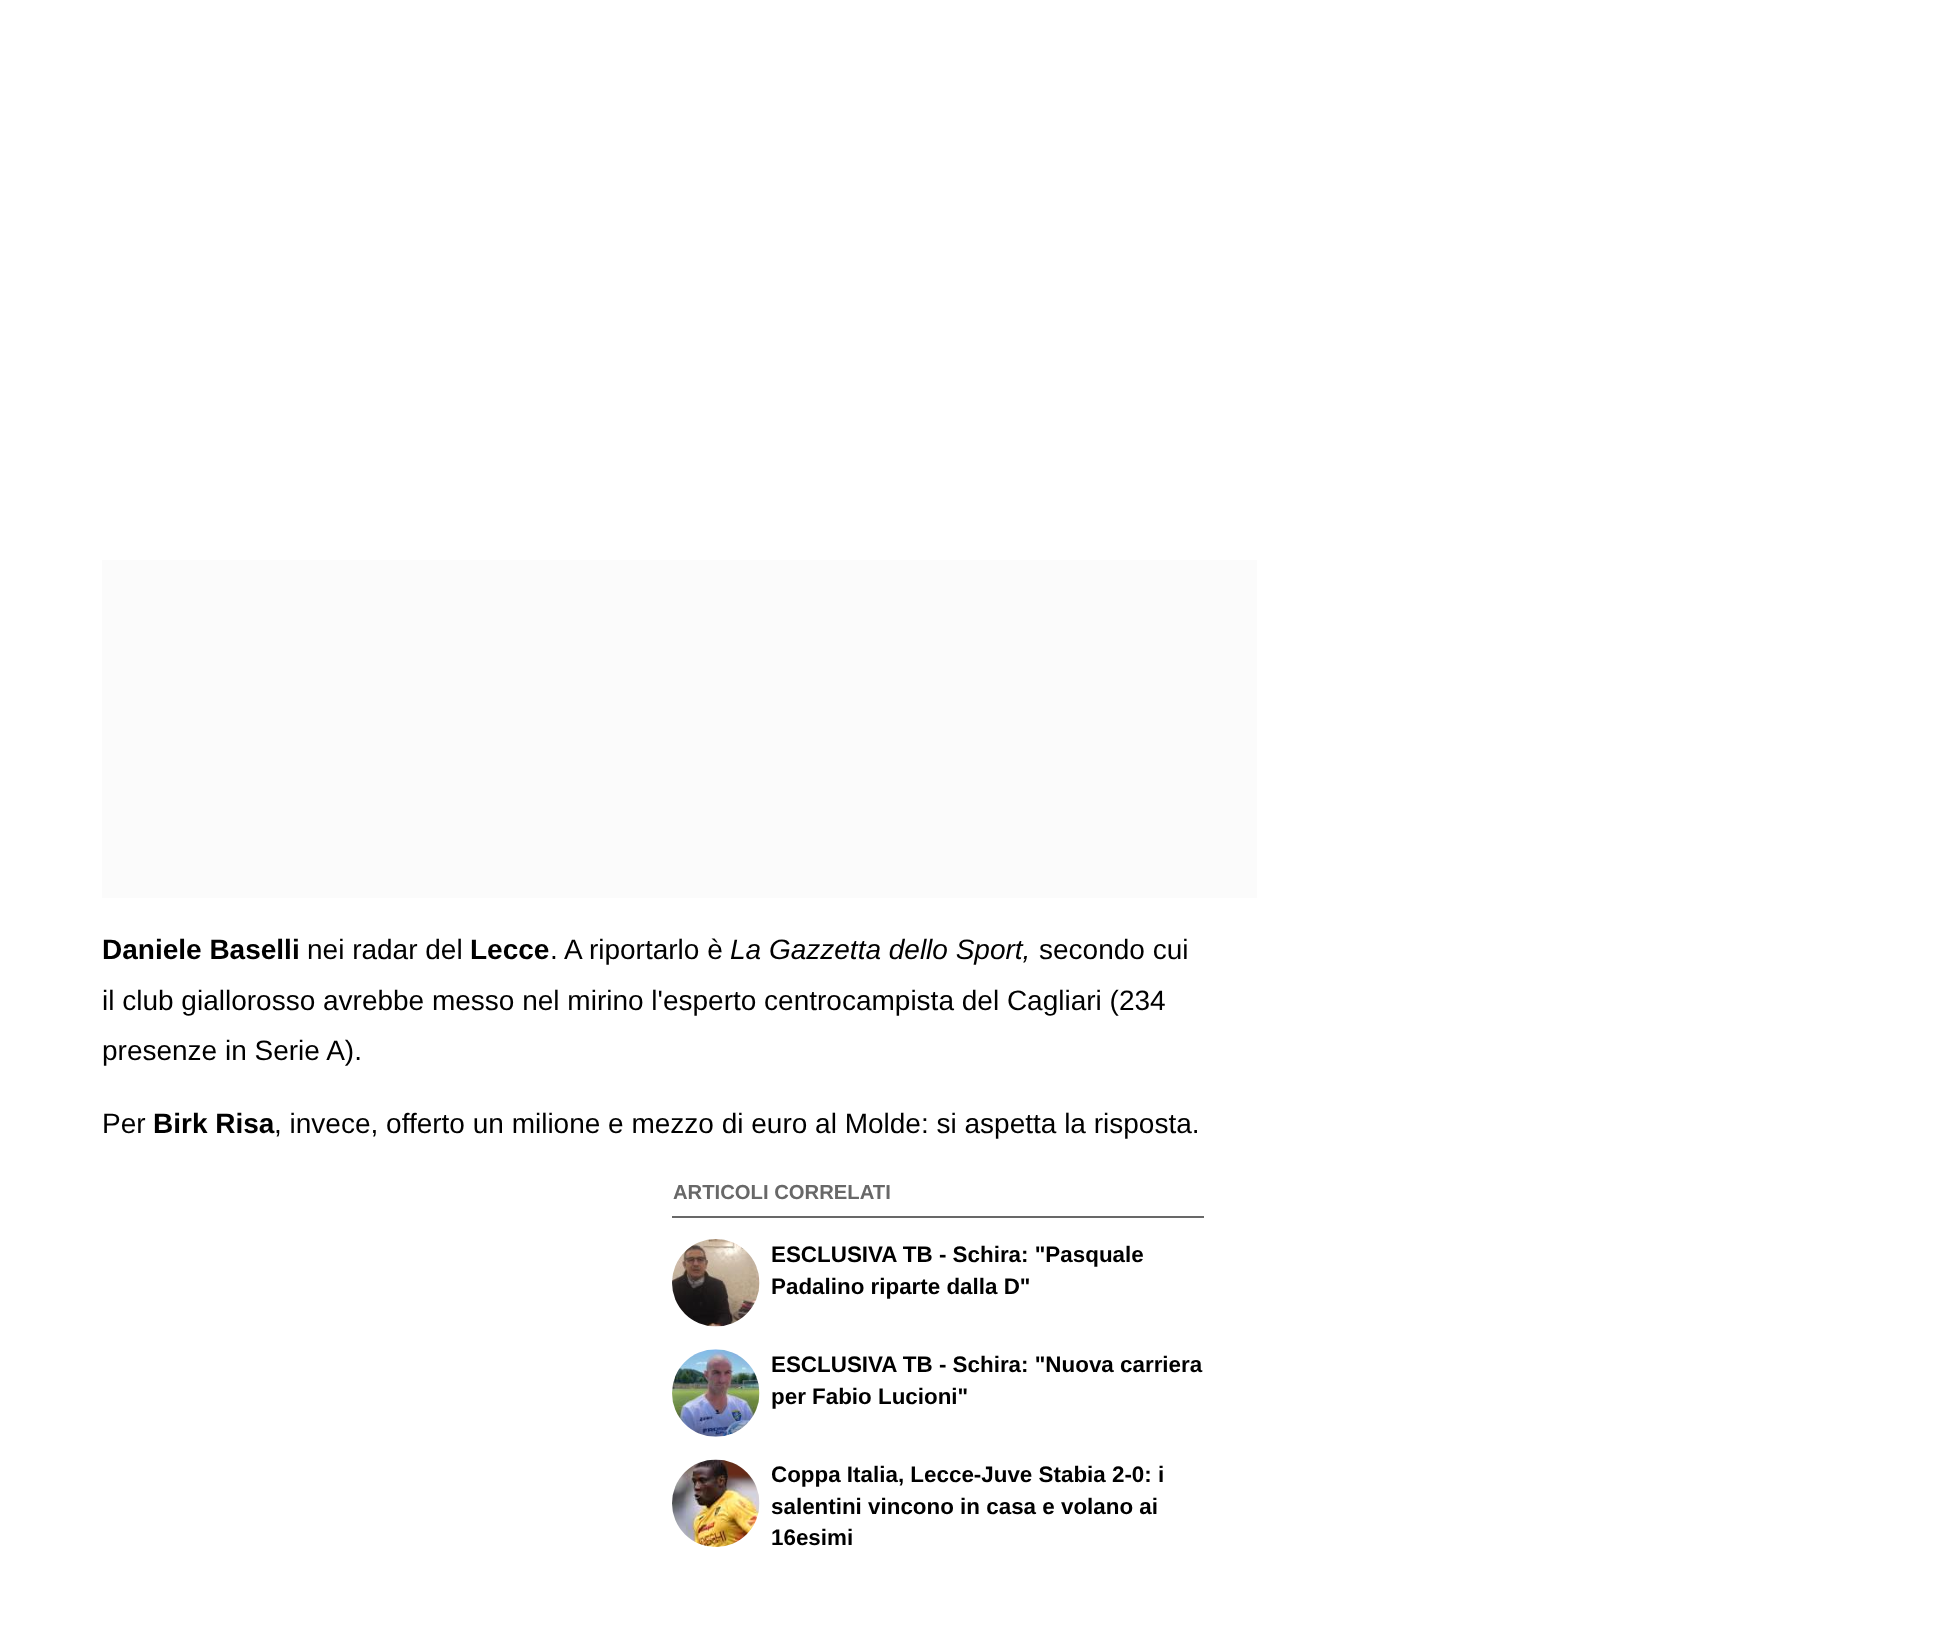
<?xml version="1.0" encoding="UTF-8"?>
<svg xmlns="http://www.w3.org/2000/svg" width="1952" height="1643">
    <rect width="100%" height="100%" fill="#FFFFFF"/>
    <rect x="102" y="560" width="1155" height="338" fill="#FBFBFB"/>
    <text x="102" y="959" font-family="Liberation Sans" font-size="28" font-weight="700" fill="#000000">Daniele Baselli</text>
    <text x="307" y="959" font-family="Liberation Sans" font-size="28" fill="#000000">nei radar del</text>
    <text x="470" y="959" font-family="Liberation Sans" font-size="28" font-weight="700" fill="#000000">Lecce</text>
    <text x="550" y="959" font-family="Liberation Sans" font-size="28" fill="#000000">. A riportarlo è</text>
    <text x="730" y="959" font-family="Liberation Sans" font-size="28" font-style="italic" fill="#000000">La Gazzetta dello Sport,</text>
    <text x="1039" y="959" font-family="Liberation Sans" font-size="28" fill="#000000">secondo cui</text>
    <text font-family="Liberation Sans" font-size="28" fill="#000000">
        <tspan x="102" y="1010">il club giallorosso avrebbe messo nel mirino l'esperto centrocampista del Cagliari (234</tspan>
        <tspan x="102" y="1060">presenze in Serie A).</tspan>
    </text>
    <text x="102" y="1133" font-family="Liberation Sans" font-size="28" fill="#000000">Per</text>
    <text x="153" y="1133" font-family="Liberation Sans" font-size="28" font-weight="700" fill="#000000">Birk Risa</text>
    <text x="274" y="1133" font-family="Liberation Sans" font-size="28" fill="#000000">, invece, offerto un milione e mezzo di euro al Molde: si aspetta la risposta.</text>
    <rect x="672" y="1216" width="532" height="2" fill="#686868"/>
    <text x="673" y="1199" font-family="Liberation Sans" font-size="20.25" font-weight="700" fill="#686868">ARTICOLI CORRELATI</text>
    <image x="672" y="1239" width="88" height="88" href="img_01.png"/>
    <text font-family="Liberation Sans" font-size="22.4" font-weight="700" fill="#000000">
        <tspan x="771" y="1262">ESCLUSIVA TB - Schira: "Pasquale</tspan>
        <tspan x="771" y="1294">Padalino riparte dalla D"</tspan>
    </text>
    <image x="672" y="1349" width="88" height="88" href="img_02.png"/>
    <text font-family="Liberation Sans" font-size="22.4" font-weight="700" fill="#000000">
        <tspan x="771" y="1372">ESCLUSIVA TB - Schira: "Nuova carriera</tspan>
        <tspan x="771" y="1404">per Fabio Lucioni"</tspan>
    </text>
    <image x="672" y="1459" width="88" height="88" href="img_03.png"/>
    <text font-family="Liberation Sans" font-size="22.4" font-weight="700" fill="#000000">
        <tspan x="771" y="1482">Coppa Italia, Lecce-Juve Stabia 2-0: i</tspan>
        <tspan x="771" y="1514">salentini vincono in casa e volano ai</tspan>
        <tspan x="771" y="1545">16esimi</tspan>
    </text>
</svg>
